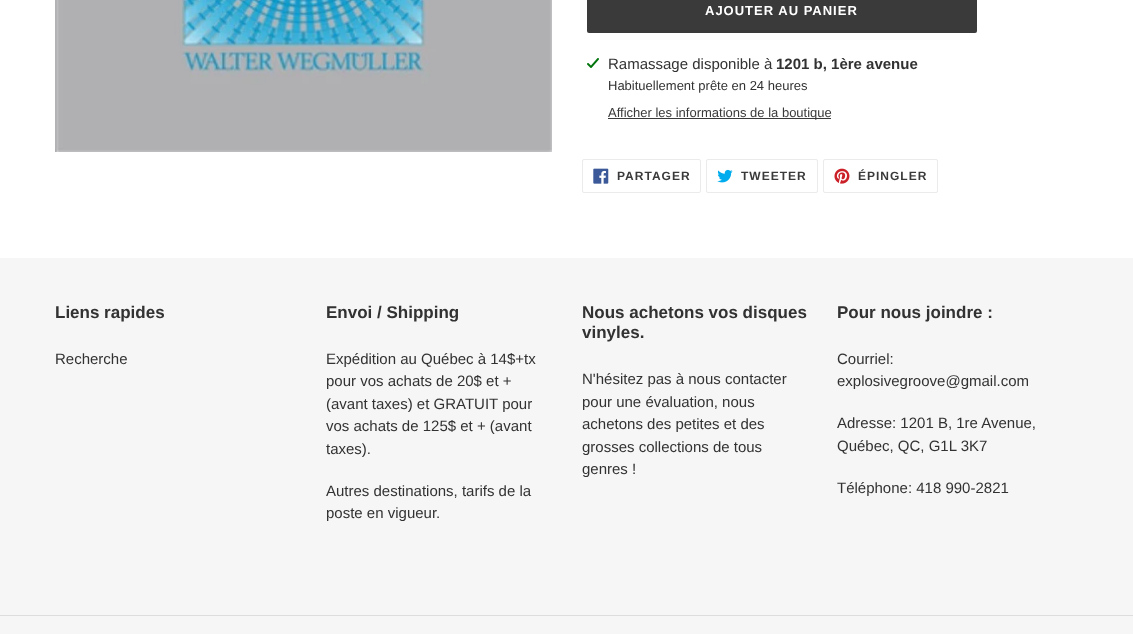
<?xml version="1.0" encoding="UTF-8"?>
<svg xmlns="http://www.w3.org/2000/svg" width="1133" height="634">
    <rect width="100%" height="100%" fill="#FFFFFF"/>
    <image x="55" y="0" width="497" height="152" href="img_01.png"/>
    <rect x="587" y="-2" width="390" height="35" rx="2" fill="#3A3A3A"/>
    <text x="705" y="15" font-family="Liberation Sans" font-size="13" font-weight="700" letter-spacing="1" fill="#FFFFFF">AJOUTER AU PANIER</text>
    <image x="587" y="58" width="12" height="10" href="img_02.png"/>
    <text x="608" y="69" font-family="Liberation Sans" font-size="15" fill="#333232">Ramassage disponible à</text>
    <text x="776" y="69" font-family="Liberation Sans" font-size="15" font-weight="700" fill="#333232">1201 b, 1ère avenue</text>
    <text x="608" y="90" font-family="Liberation Sans" font-size="13" fill="#333232">Habituellement prête en 24 heures</text>
    <rect x="608" y="118" width="223" height="1" fill="#3A3A3A"/>
    <text x="608" y="117" font-family="Liberation Sans" font-size="13" fill="#3A3A3A">Afficher les informations de la boutique</text>
    <rect x="582.5" y="159.5" width="118" height="33" rx="1.5" fill="none" stroke="#EBEBEB"/>
    <image x="593" y="168" width="16" height="16" href="img_03.png"/>
    <text x="617" y="180" font-family="Liberation Sans" font-size="12" font-weight="700" letter-spacing="1" fill="#3A3A3A">PARTAGER</text>
    <rect x="706.5" y="159.5" width="111" height="33" rx="1.5" fill="none" stroke="#EBEBEB"/>
    <image x="717" y="169" width="16" height="14" href="img_04.png"/>
    <text x="741" y="180" font-family="Liberation Sans" font-size="12" font-weight="700" letter-spacing="1" fill="#3A3A3A">TWEETER</text>
    <rect x="823.5" y="159.5" width="114" height="33" rx="1.5" fill="none" stroke="#EBEBEB"/>
    <image x="834" y="168" width="16" height="16" href="img_05.png"/>
    <text x="858" y="180" font-family="Liberation Sans" font-size="12" font-weight="700" letter-spacing="1" fill="#3A3A3A">ÉPINGLER</text>
    <rect x="0" y="258" width="1133" height="376" fill="#F6F6F6"/>
    <text x="55" y="318" font-family="Liberation Sans" font-size="17" font-weight="700" fill="#333232">Liens rapides</text>
    <text x="55" y="364" font-family="Liberation Sans" font-size="15" fill="#333232">Recherche</text>
    <text x="326" y="318" font-family="Liberation Sans" font-size="17" font-weight="700" fill="#333232">Envoi / Shipping</text>
    <text font-family="Liberation Sans" font-size="15" fill="#333232">
        <tspan x="326" y="364">Expédition au Québec à 14$+tx</tspan>
        <tspan x="326" y="386">pour vos achats de 20$ et +</tspan>
        <tspan x="326" y="409">(avant taxes) et GRATUIT pour</tspan>
        <tspan x="326" y="431">vos achats de 125$ et + (avant</tspan>
        <tspan x="326" y="454">taxes).</tspan>
    </text>
    <text font-family="Liberation Sans" font-size="15" fill="#333232">
        <tspan x="326" y="496">Autres destinations, tarifs de la</tspan>
        <tspan x="326" y="518">poste en vigueur.</tspan>
    </text>
    <text font-family="Liberation Sans" font-size="17" font-weight="700" fill="#333232">
        <tspan x="582" y="318">Nous achetons vos disques</tspan>
        <tspan x="582" y="338">vinyles.</tspan>
    </text>
    <text font-family="Liberation Sans" font-size="15" fill="#333232">
        <tspan x="582" y="384">N'hésitez pas à nous contacter</tspan>
        <tspan x="582" y="407">pour une évaluation, nous</tspan>
        <tspan x="582" y="429">achetons des petites et des</tspan>
        <tspan x="582" y="452">grosses collections de tous</tspan>
        <tspan x="582" y="474">genres !</tspan>
    </text>
    <text x="837" y="318" font-family="Liberation Sans" font-size="17" font-weight="700" fill="#333232">Pour nous joindre :</text>
    <text font-family="Liberation Sans" font-size="15" fill="#333232">
        <tspan x="837" y="364">Courriel:</tspan>
        <tspan x="837" y="386">explosivegroove@gmail.com</tspan>
    </text>
    <text font-family="Liberation Sans" font-size="15" fill="#333232">
        <tspan x="837" y="428">Adresse: 1201 B, 1re Avenue,</tspan>
        <tspan x="837" y="451">Québec, QC, G1L 3K7</tspan>
    </text>
    <text x="837" y="493" font-family="Liberation Sans" font-size="15" fill="#333232">Téléphone: 418 990-2821</text>
    <rect x="0" y="615" width="1133" height="1" fill="#DDDDDD"/>
</svg>
